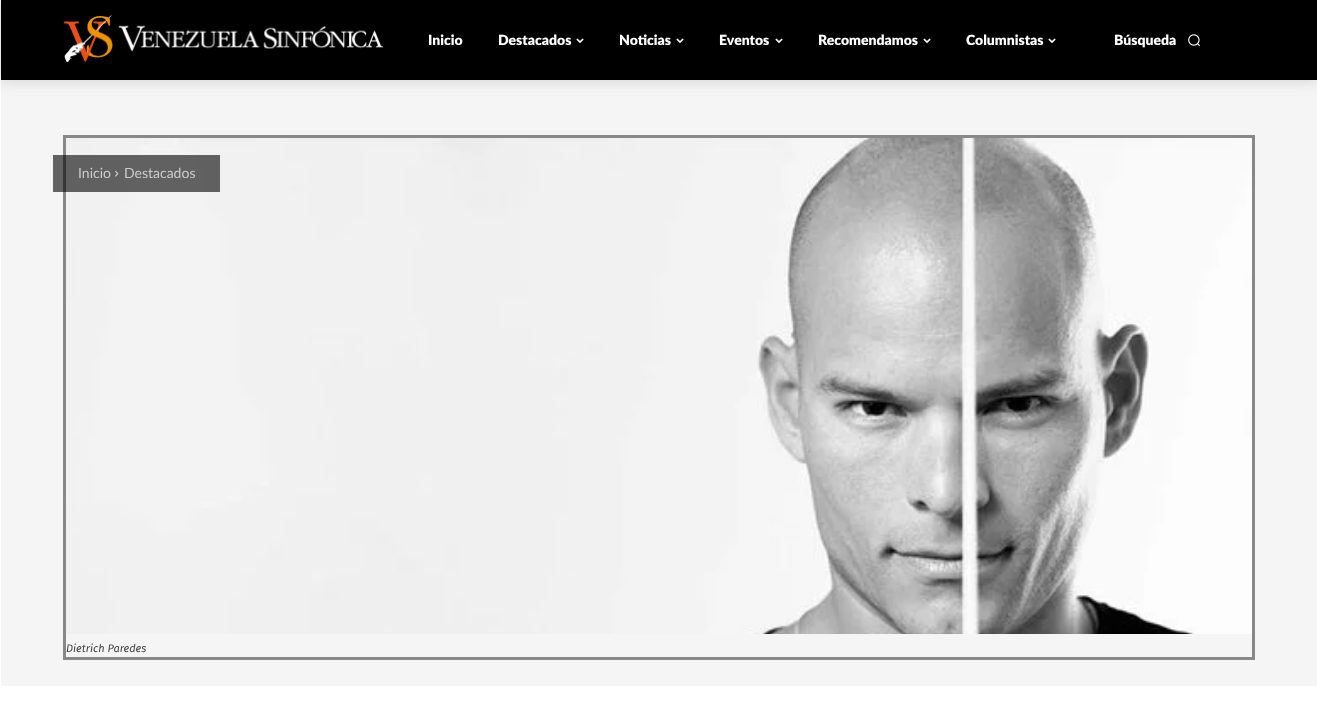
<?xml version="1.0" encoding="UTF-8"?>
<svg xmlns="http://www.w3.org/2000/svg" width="1317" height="704">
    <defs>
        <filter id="blur1" x="-50%" y="-200%" width="200%" height="500%"><feGaussianBlur stdDeviation="8"/></filter>
    </defs>
    <rect width="100%" height="100%" fill="#FFFFFF"/>
    <rect x="1" y="80" width="1316" height="606" fill="#F5F5F5"/>
    <rect x="0" y="0" width="1317" height="80" fill="#000000" fill-opacity="0.16" filter="url(#blur1)"/>
    <rect x="1" y="0" width="1316" height="80" fill="#000000"/>
    <image x="63" y="15" width="320" height="47" href="img_01.png"/>
    <text x="428" y="45" font-family="Lato" font-size="14" font-weight="800" fill="#FFFFFF">Inicio</text>
    <text x="498" y="45" font-family="Lato" font-size="14" font-weight="800" fill="#FFFFFF">Destacados</text>
    <image x="576" y="38" width="8" height="6" href="img_02.png"/>
    <text x="619" y="45" font-family="Lato" font-size="14" font-weight="800" fill="#FFFFFF">Noticias</text>
    <image x="676" y="38" width="8" height="6" href="img_02.png"/>
    <text x="719" y="45" font-family="Lato" font-size="14" font-weight="800" fill="#FFFFFF">Eventos</text>
    <image x="775" y="38" width="8" height="6" href="img_02.png"/>
    <text x="818" y="45" font-family="Lato" font-size="14" font-weight="800" fill="#FFFFFF">Recomendamos</text>
    <image x="923" y="38" width="8" height="6" href="img_02.png"/>
    <text x="966" y="45" font-family="Lato" font-size="14" font-weight="800" fill="#FFFFFF">Columnistas</text>
    <image x="1048" y="38" width="8" height="6" href="img_02.png"/>
    <text x="1114" y="45" font-family="Lato" font-size="14" font-weight="800" fill="#FFFFFF">Búsqueda</text>
    <image x="1188" y="34" width="12" height="13" href="img_03.png"/>
    <rect x="64.5" y="136.5" width="1189" height="522" fill="none" stroke="#888888" stroke-width="3"/>
    <image x="66" y="138" width="1186" height="496" href="img_05.png"/>
    <rect x="53" y="155" width="167" height="37" fill="#000000" fill-opacity="0.6"/>
    <text x="78" y="178" font-family="Lato" font-size="14" fill="#CCCCCC">Inicio</text>
    <image x="115" y="170" width="4" height="7" href="img_04.png"/>
    <text x="124" y="178" font-family="Lato" font-size="14" fill="#CCCCCC">Destacados</text>
    <text x="66" y="652" font-family="Fira Sans" font-size="11" font-style="italic" fill="#444444">Dietrich Paredes</text>
</svg>
